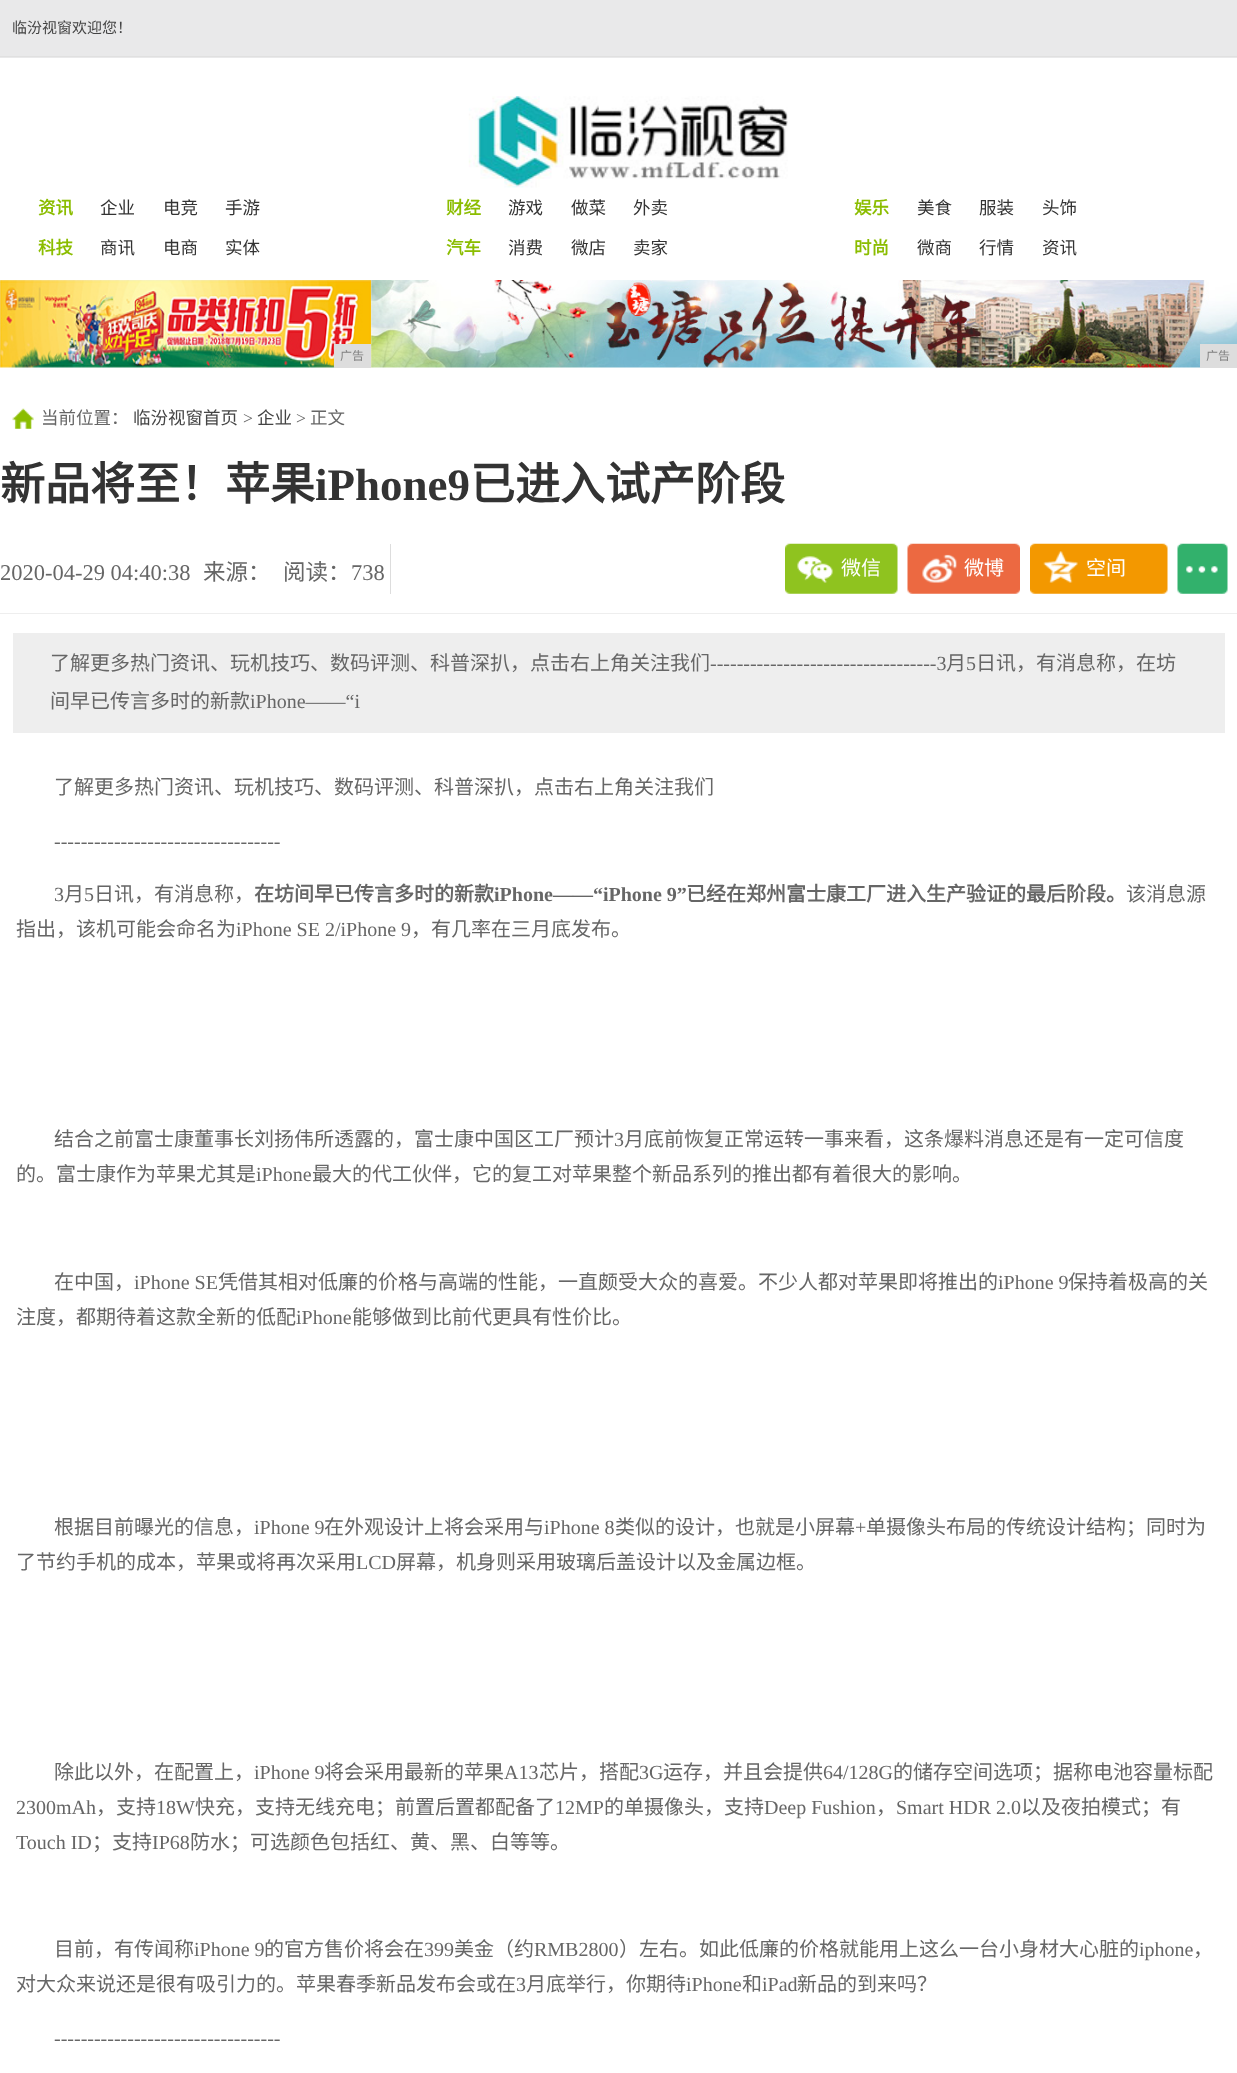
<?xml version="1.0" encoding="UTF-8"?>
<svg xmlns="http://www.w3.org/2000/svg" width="1237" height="2073">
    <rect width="100%" height="100%" fill="#FFFFFF"/>
    <rect x="0" y="0" width="1237" height="58" fill="#E9E9EA"/>
    <rect x="0" y="56" width="1237" height="1" fill="#E0E0E0"/>
    <text x="12" y="33" font-family="Noto Sans CJK SC" font-size="15" fill="#444444">临汾视窗欢迎您！</text>
    <image x="468" y="96" width="320" height="92" href="img_01.png"/>
    <text x="38" y="214" font-family="Noto Sans CJK SC" font-size="17.5" font-weight="700" fill="#8BBD00">资讯</text>
    <text x="100" y="214" font-family="Noto Sans CJK SC" font-size="17.5" fill="#333333">企业</text>
    <text x="163" y="214" font-family="Noto Sans CJK SC" font-size="17.5" fill="#333333">电竞</text>
    <text x="225" y="214" font-family="Noto Sans CJK SC" font-size="17.5" fill="#333333">手游</text>
    <text x="446" y="214" font-family="Noto Sans CJK SC" font-size="17.5" font-weight="700" fill="#8BBD00">财经</text>
    <text x="508" y="214" font-family="Noto Sans CJK SC" font-size="17.5" fill="#333333">游戏</text>
    <text x="571" y="214" font-family="Noto Sans CJK SC" font-size="17.5" fill="#333333">做菜</text>
    <text x="633" y="214" font-family="Noto Sans CJK SC" font-size="17.5" fill="#333333">外卖</text>
    <text x="854" y="214" font-family="Noto Sans CJK SC" font-size="17.5" font-weight="700" fill="#8BBD00">娱乐</text>
    <text x="917" y="214" font-family="Noto Sans CJK SC" font-size="17.5" fill="#333333">美食</text>
    <text x="979" y="214" font-family="Noto Sans CJK SC" font-size="17.5" fill="#333333">服装</text>
    <text x="1042" y="214" font-family="Noto Sans CJK SC" font-size="17.5" fill="#333333">头饰</text>
    <text x="38" y="254" font-family="Noto Sans CJK SC" font-size="17.5" font-weight="700" fill="#8BBD00">科技</text>
    <text x="100" y="254" font-family="Noto Sans CJK SC" font-size="17.5" fill="#333333">商讯</text>
    <text x="163" y="254" font-family="Noto Sans CJK SC" font-size="17.5" fill="#333333">电商</text>
    <text x="225" y="254" font-family="Noto Sans CJK SC" font-size="17.5" fill="#333333">实体</text>
    <text x="446" y="254" font-family="Noto Sans CJK SC" font-size="17.5" font-weight="700" fill="#8BBD00">汽车</text>
    <text x="508" y="254" font-family="Noto Sans CJK SC" font-size="17.5" fill="#333333">消费</text>
    <text x="571" y="254" font-family="Noto Sans CJK SC" font-size="17.5" fill="#333333">微店</text>
    <text x="633" y="254" font-family="Noto Sans CJK SC" font-size="17.5" fill="#333333">卖家</text>
    <text x="854" y="254" font-family="Noto Sans CJK SC" font-size="17.5" font-weight="700" fill="#8BBD00">时尚</text>
    <text x="917" y="254" font-family="Noto Sans CJK SC" font-size="17.5" fill="#333333">微商</text>
    <text x="979" y="254" font-family="Noto Sans CJK SC" font-size="17.5" fill="#333333">行情</text>
    <text x="1042" y="254" font-family="Noto Sans CJK SC" font-size="17.5" fill="#333333">资讯</text>
    <image x="0" y="280" width="372" height="88" href="img_02.png"/>
    <rect x="334" y="344" width="37" height="24" fill="#DDDDDD"/>
    <text x="340" y="360" font-family="Noto Sans CJK SC" font-size="12" fill="#808080">广告</text>
    <image x="371" y="280" width="866" height="88" href="img_03.png"/>
    <rect x="1200" y="344" width="37" height="24" fill="#DDDDDD"/>
    <text x="1206" y="360" font-family="Noto Sans CJK SC" font-size="12" fill="#808080">广告</text>
    <image x="12" y="408" width="22" height="21" href="img_04.png"/>
    <text x="41" y="424" font-family="Noto Sans CJK SC" font-size="17.5" fill="#666666">当前位置：</text>
    <text x="133" y="424" font-family="Noto Sans CJK SC" font-size="17.5" fill="#444444">临汾视窗首页</text>
    <text x="243" y="424" font-family="Liberation Serif" font-size="17.5" fill="#666666">&gt;</text>
    <text x="257" y="424" font-family="Noto Sans CJK SC" font-size="17.5" fill="#444444">企业</text>
    <text x="296" y="424" font-family="Liberation Serif" font-size="17.5" fill="#666666">&gt;</text>
    <text x="310" y="424" font-family="Noto Sans CJK SC" font-size="17.5" fill="#666666">正文</text>
    <text x="0" y="500" font-family="Noto Sans CJK SC" font-size="45" font-weight="700" fill="#333333">新品将至！苹果</text>
    <text x="315" y="500" font-family="Liberation Serif" font-size="45" font-weight="700" fill="#333333">iPhone9</text>
    <text x="470" y="500" font-family="Noto Sans CJK SC" font-size="45" font-weight="700" fill="#333333">已进入试产阶段</text>
    <rect x="0" y="613" width="1237" height="1" fill="#EEEEEE"/>
    <text x="0" y="580" font-family="Liberation Serif" font-size="22.5" fill="#666666">2020-04-29 04:40:38</text>
    <text x="203" y="580" font-family="Noto Sans CJK SC" font-size="22.5" fill="#666666">来源：</text>
    <text x="283" y="580" font-family="Noto Sans CJK SC" font-size="22.5" fill="#666666">阅读：</text>
    <text x="351" y="580" font-family="Liberation Serif" font-size="22.5" fill="#666666">738</text>
    <rect x="390" y="544" width="1" height="50" fill="#DDDDDD"/>
    <image x="785" y="543" width="113" height="51" href="img_05.png"/>
    <text x="841" y="575" font-family="Noto Sans CJK SC" font-size="20" fill="#FFFFFF">微信</text>
    <image x="907" y="543" width="113" height="51" href="img_06.png"/>
    <text x="964" y="575" font-family="Noto Sans CJK SC" font-size="20" fill="#FFFFFF">微博</text>
    <image x="1030" y="543" width="138" height="51" href="img_07.png"/>
    <text x="1086" y="575" font-family="Noto Sans CJK SC" font-size="20" fill="#FFFFFF">空间</text>
    <image x="1177" y="543" width="51" height="51" href="img_08.png"/>
    <rect x="13" y="633" width="1212" height="100" fill="#EEEEEE"/>
    <text x="50" y="670" font-family="Noto Sans CJK SC" font-size="20" fill="#666666">了解更多热门资讯、玩机技巧、数码评测、科普深扒，点击右上角关注我们</text>
    <text x="710" y="670" font-family="Liberation Serif" font-size="20" fill="#666666">----------------------------------3</text>
    <text x="946" y="670" font-family="Noto Sans CJK SC" font-size="20" fill="#666666">月</text>
    <text x="966" y="670" font-family="Liberation Serif" font-size="20" fill="#666666">5</text>
    <text x="976" y="670" font-family="Noto Sans CJK SC" font-size="20" fill="#666666">日讯，有消息称，在坊</text>
    <text x="50" y="708" font-family="Noto Sans CJK SC" font-size="20" fill="#666666">间早已传言多时的新款</text>
    <text x="250" y="708" font-family="Liberation Serif" font-size="20" fill="#666666">iPhone——“i</text>
    <text x="54" y="794" font-family="Noto Sans CJK SC" font-size="20" fill="#666666">了解更多热门资讯、玩机技巧、数码评测、科普深扒，点击右上角关注我们</text>
    <text x="54" y="848" font-family="Liberation Serif" font-size="20" fill="#666666">----------------------------------</text>
    <text x="54" y="901" font-family="Liberation Serif" font-size="20" fill="#666666">3</text>
    <text x="64" y="901" font-family="Noto Sans CJK SC" font-size="20" fill="#666666">月</text>
    <text x="84" y="901" font-family="Liberation Serif" font-size="20" fill="#666666">5</text>
    <text x="94" y="901" font-family="Noto Sans CJK SC" font-size="20" fill="#666666">日讯，有消息称，</text>
    <text x="254" y="901" font-family="Noto Sans CJK SC" font-size="20" font-weight="700" fill="#666666">在坊间早已传言多时的新款</text>
    <text x="494" y="901" font-family="Liberation Serif" font-size="20" font-weight="700" fill="#666666">iPhone——“iPhone 9”</text>
    <text x="686" y="901" font-family="Noto Sans CJK SC" font-size="20" font-weight="700" fill="#666666">已经在郑州富士康工厂进入生产验证的最后阶段。</text>
    <text x="1126" y="901" font-family="Noto Sans CJK SC" font-size="20" fill="#666666">该消息源</text>
    <text x="16" y="936" font-family="Noto Sans CJK SC" font-size="20" fill="#666666">指出，该机可能会命名为</text>
    <text x="236" y="936" font-family="Liberation Serif" font-size="20" fill="#666666">iPhone SE 2/iPhone 9</text>
    <text x="411" y="936" font-family="Noto Sans CJK SC" font-size="20" fill="#666666">，有几率在三月底发布。</text>
    <text x="54" y="1146" font-family="Noto Sans CJK SC" font-size="20" fill="#666666">结合之前富士康董事长刘扬伟所透露的，富士康中国区工厂预计</text>
    <text x="614" y="1146" font-family="Liberation Serif" font-size="20" fill="#666666">3</text>
    <text x="624" y="1146" font-family="Noto Sans CJK SC" font-size="20" fill="#666666">月底前恢复正常运转一事来看，这条爆料消息还是有一定可信度</text>
    <text x="16" y="1181" font-family="Noto Sans CJK SC" font-size="20" fill="#666666">的。富士康作为苹果尤其是</text>
    <text x="256" y="1181" font-family="Liberation Serif" font-size="20" fill="#666666">iPhone</text>
    <text x="312" y="1181" font-family="Noto Sans CJK SC" font-size="20" fill="#666666">最大的代工伙伴，它的复工对苹果整个新品系列的推出都有着很大的影响。</text>
    <text x="54" y="1289" font-family="Noto Sans CJK SC" font-size="20" fill="#666666">在中国，</text>
    <text x="134" y="1289" font-family="Liberation Serif" font-size="20" fill="#666666">iPhone SE</text>
    <text x="218" y="1289" font-family="Noto Sans CJK SC" font-size="20" fill="#666666">凭借其相对低廉的价格与高端的性能，一直颇受大众的喜爱。不少人都对苹果即将推出的</text>
    <text x="998" y="1289" font-family="Liberation Serif" font-size="20" fill="#666666">iPhone 9</text>
    <text x="1068" y="1289" font-family="Noto Sans CJK SC" font-size="20" fill="#666666">保持着极高的关</text>
    <text x="16" y="1324" font-family="Noto Sans CJK SC" font-size="20" fill="#666666">注度，都期待着这款全新的低配</text>
    <text x="296" y="1324" font-family="Liberation Serif" font-size="20" fill="#666666">iPhone</text>
    <text x="352" y="1324" font-family="Noto Sans CJK SC" font-size="20" fill="#666666">能够做到比前代更具有性价比。</text>
    <text x="54" y="1534" font-family="Noto Sans CJK SC" font-size="20" fill="#666666">根据目前曝光的信息，</text>
    <text x="254" y="1534" font-family="Liberation Serif" font-size="20" fill="#666666">iPhone 9</text>
    <text x="324" y="1534" font-family="Noto Sans CJK SC" font-size="20" fill="#666666">在外观设计上将会采用与</text>
    <text x="544" y="1534" font-family="Liberation Serif" font-size="20" fill="#666666">iPhone 8</text>
    <text x="615" y="1534" font-family="Noto Sans CJK SC" font-size="20" fill="#666666">类似的设计，也就是小屏幕</text>
    <text x="855" y="1534" font-family="Liberation Serif" font-size="20" fill="#666666">+</text>
    <text x="866" y="1534" font-family="Noto Sans CJK SC" font-size="20" fill="#666666">单摄像头布局的传统设计结构；同时为</text>
    <text x="16" y="1569" font-family="Noto Sans CJK SC" font-size="20" fill="#666666">了节约手机的成本，苹果或将再次采用</text>
    <text x="356" y="1569" font-family="Liberation Serif" font-size="20" fill="#666666">LCD</text>
    <text x="396" y="1569" font-family="Noto Sans CJK SC" font-size="20" fill="#666666">屏幕，机身则采用玻璃后盖设计以及金属边框。</text>
    <text x="54" y="1779" font-family="Noto Sans CJK SC" font-size="20" fill="#666666">除此以外，在配置上，</text>
    <text x="254" y="1779" font-family="Liberation Serif" font-size="20" fill="#666666">iPhone 9</text>
    <text x="324" y="1779" font-family="Noto Sans CJK SC" font-size="20" fill="#666666">将会采用最新的苹果</text>
    <text x="504" y="1779" font-family="Liberation Serif" font-size="20" fill="#666666">A13</text>
    <text x="539" y="1779" font-family="Noto Sans CJK SC" font-size="20" fill="#666666">芯片，搭配</text>
    <text x="639" y="1779" font-family="Liberation Serif" font-size="20" fill="#666666">3G</text>
    <text x="663" y="1779" font-family="Noto Sans CJK SC" font-size="20" fill="#666666">运存，并且会提供</text>
    <text x="823" y="1779" font-family="Liberation Serif" font-size="20" fill="#666666">64/128G</text>
    <text x="893" y="1779" font-family="Noto Sans CJK SC" font-size="20" fill="#666666">的储存空间选项；据称电池容量标配</text>
    <text x="16" y="1814" font-family="Liberation Serif" font-size="20" fill="#666666">2300mAh</text>
    <text x="96" y="1814" font-family="Noto Sans CJK SC" font-size="20" fill="#666666">，支持</text>
    <text x="156" y="1814" font-family="Liberation Serif" font-size="20" fill="#666666">18W</text>
    <text x="195" y="1814" font-family="Noto Sans CJK SC" font-size="20" fill="#666666">快充，支持无线充电；前置后置都配备了</text>
    <text x="555" y="1814" font-family="Liberation Serif" font-size="20" fill="#666666">12MP</text>
    <text x="604" y="1814" font-family="Noto Sans CJK SC" font-size="20" fill="#666666">的单摄像头，支持</text>
    <text x="764" y="1814" font-family="Liberation Serif" font-size="20" fill="#666666">Deep Fushion</text>
    <text x="876" y="1814" font-family="Noto Sans CJK SC" font-size="20" fill="#666666">，</text>
    <text x="896" y="1814" font-family="Liberation Serif" font-size="20" fill="#666666">Smart HDR 2.0</text>
    <text x="1021" y="1814" font-family="Noto Sans CJK SC" font-size="20" fill="#666666">以及夜拍模式；有</text>
    <text x="16" y="1849" font-family="Liberation Serif" font-size="20" fill="#666666">Touch ID</text>
    <text x="92" y="1849" font-family="Noto Sans CJK SC" font-size="20" fill="#666666">；支持</text>
    <text x="152" y="1849" font-family="Liberation Serif" font-size="20" fill="#666666">IP68</text>
    <text x="190" y="1849" font-family="Noto Sans CJK SC" font-size="20" fill="#666666">防水；可选颜色包括红、黄、黑、白等等。</text>
    <text x="54" y="1956" font-family="Noto Sans CJK SC" font-size="20" fill="#666666">目前，有传闻称</text>
    <text x="194" y="1956" font-family="Liberation Serif" font-size="20" fill="#666666">iPhone 9</text>
    <text x="264" y="1956" font-family="Noto Sans CJK SC" font-size="20" fill="#666666">的官方售价将会在</text>
    <text x="424" y="1956" font-family="Liberation Serif" font-size="20" fill="#666666">399</text>
    <text x="454" y="1956" font-family="Noto Sans CJK SC" font-size="20" fill="#666666">美金（约</text>
    <text x="534" y="1956" font-family="Liberation Serif" font-size="20" fill="#666666">RMB2800</text>
    <text x="619" y="1956" font-family="Noto Sans CJK SC" font-size="20" fill="#666666">）左右。如此低廉的价格就能用上这么一台小身材大心脏的</text>
    <text x="1139" y="1956" font-family="Liberation Serif" font-size="20" fill="#666666">iphone</text>
    <text x="1193" y="1956" font-family="Noto Sans CJK SC" font-size="20" fill="#666666">，</text>
    <text x="16" y="1991" font-family="Noto Sans CJK SC" font-size="20" fill="#666666">对大众来说还是很有吸引力的。苹果春季新品发布会或在</text>
    <text x="516" y="1991" font-family="Liberation Serif" font-size="20" fill="#666666">3</text>
    <text x="526" y="1991" font-family="Noto Sans CJK SC" font-size="20" fill="#666666">月底举行，你期待</text>
    <text x="686" y="1991" font-family="Liberation Serif" font-size="20" fill="#666666">iPhone</text>
    <text x="742" y="1991" font-family="Noto Sans CJK SC" font-size="20" fill="#666666">和</text>
    <text x="762" y="1991" font-family="Liberation Serif" font-size="20" fill="#666666">iPad</text>
    <text x="797" y="1991" font-family="Noto Sans CJK SC" font-size="20" fill="#666666">新品的到来吗？</text>
    <text x="54" y="2045" font-family="Liberation Serif" font-size="20" fill="#666666">----------------------------------</text>
</svg>
